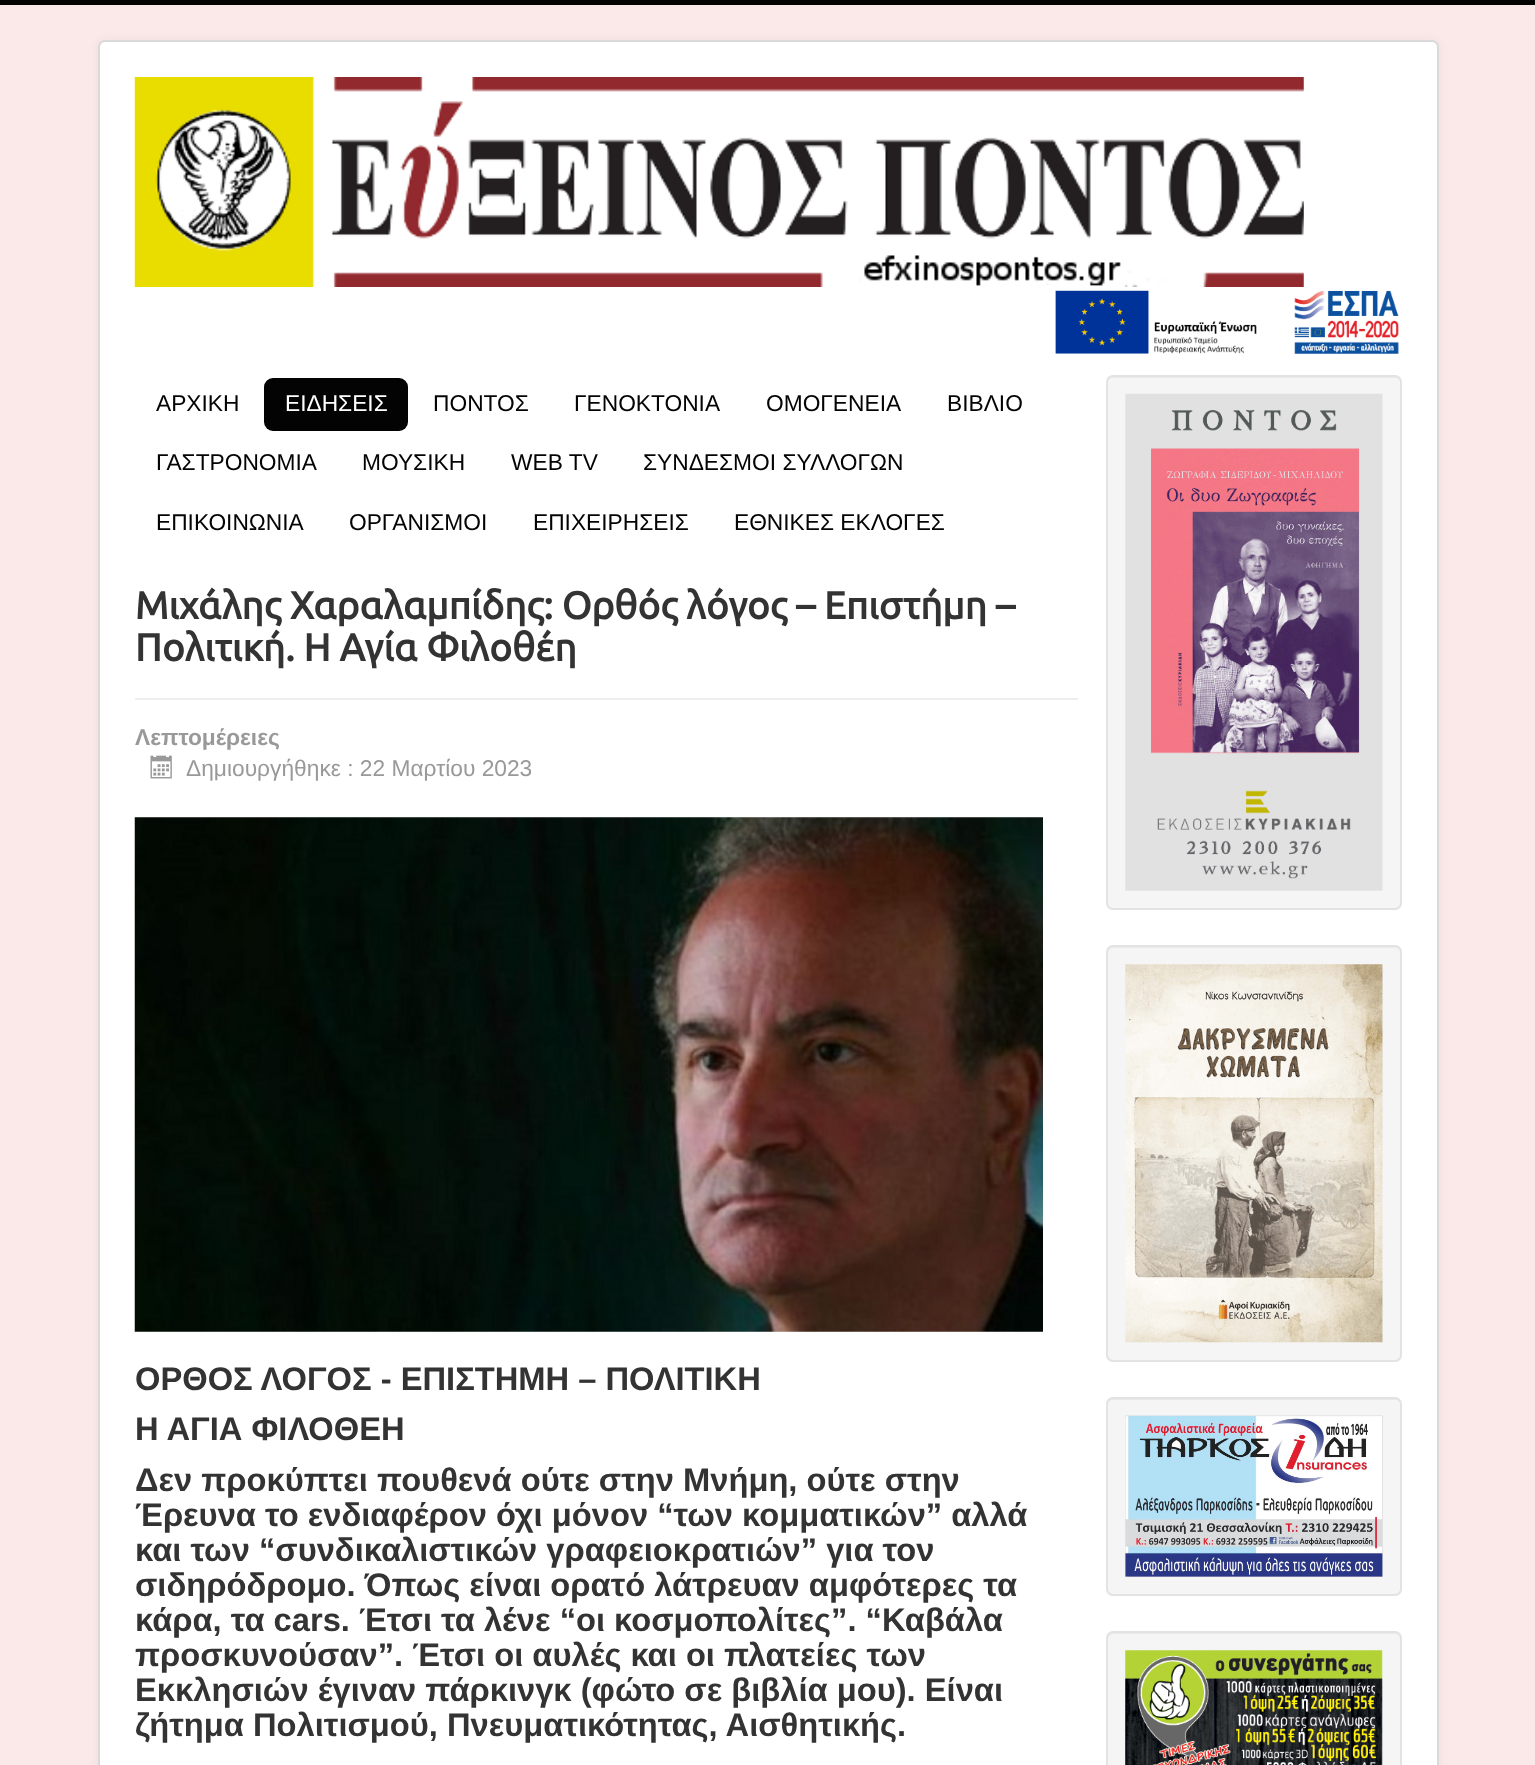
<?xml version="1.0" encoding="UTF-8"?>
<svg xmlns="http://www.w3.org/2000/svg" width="1535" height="1765">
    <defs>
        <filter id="blur1" x="-50%" y="-200%" width="200%" height="500%"><feGaussianBlur stdDeviation="5"/></filter>
    </defs>
    <rect width="100%" height="100%" fill="#FAE9E8"/>
    <rect x="0" y="0" width="1535" height="5" fill="#030303"/>
    <rect x="98" y="40" width="1341" height="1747" rx="7" fill="#000000" fill-opacity="0.05" filter="url(#blur1)"/>
    <rect x="98" y="40" width="1341" height="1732" rx="7" fill="#FFFFFF"/>
    <rect x="99" y="41" width="1339" height="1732" rx="6" fill="none" stroke="#000000" stroke-opacity="0.15" stroke-width="2"/>
    <image x="134" y="77" width="1170" height="210" href="img_01.png"/>
    <image x="1055" y="290" width="344" height="64" href="img_02.png"/>
    <text x="156" y="411" font-family="Liberation Sans" font-size="22.75" fill="#030303">ΑΡΧΙΚΗ</text>
    <rect x="264" y="378" width="144" height="53" rx="9" fill="#030303"/>
    <text x="285" y="411" font-family="Liberation Sans" font-size="22.75" fill="#FFFFFF">ΕΙΔΗΣΕΙΣ</text>
    <text x="433" y="411" font-family="Liberation Sans" font-size="22.75" fill="#030303">ΠΟΝΤΟΣ</text>
    <text x="574" y="411" font-family="Liberation Sans" font-size="22.75" fill="#030303">ΓΕΝΟΚΤΟΝΙΑ</text>
    <text x="766" y="411" font-family="Liberation Sans" font-size="22.75" fill="#030303">ΟΜΟΓΕΝΕΙΑ</text>
    <text x="947" y="411" font-family="Liberation Sans" font-size="22.75" fill="#030303">ΒΙΒΛΙΟ</text>
    <text x="156" y="470" font-family="Liberation Sans" font-size="22.75" fill="#030303">ΓΑΣΤΡΟΝΟΜΙΑ</text>
    <text x="362" y="470" font-family="Liberation Sans" font-size="22.75" fill="#030303">ΜΟΥΣΙΚΗ</text>
    <text x="511" y="470" font-family="Liberation Sans" font-size="22.75" fill="#030303">WEB TV</text>
    <text x="643" y="470" font-family="Liberation Sans" font-size="22.75" fill="#030303">ΣΥΝΔΕΣΜΟΙ ΣΥΛΛΟΓΩΝ</text>
    <text x="156" y="530" font-family="Liberation Sans" font-size="22.75" fill="#030303">ΕΠΙΚΟΙΝΩΝΙΑ</text>
    <text x="349" y="530" font-family="Liberation Sans" font-size="22.75" fill="#030303">ΟΡΓΑΝΙΣΜΟΙ</text>
    <text x="533" y="530" font-family="Liberation Sans" font-size="22.75" fill="#030303">ΕΠΙΧΕΙΡΗΣΕΙΣ</text>
    <text x="734" y="530" font-family="Liberation Sans" font-size="22.75" fill="#030303">ΕΘΝΙΚΕΣ ΕΚΛΟΓΕΣ</text>
    <rect x="135" y="698" width="943" height="2" fill="#EEEEEE"/>
    <text font-family="Ubuntu" font-size="38.5" font-weight="700" fill="#333333">
        <tspan x="135" y="619">Μιχάλης Χαραλαμπίδης: Ορθός λόγος – Επιστήμη –</tspan>
        <tspan x="135" y="661">Πολιτική. Η Αγία Φιλοθέη</tspan>
    </text>
    <text x="135" y="745" font-family="Liberation Sans" font-size="22.75" font-weight="700" fill="#999999">Λεπτομέρειες</text>
    <image x="150" y="755" width="22" height="24" href="img_03.png"/>
    <text x="186" y="776" font-family="Liberation Sans" font-size="22.75" fill="#999999">Δημιουργήθηκε : 22 Μαρτίου 2023</text>
    <image x="134" y="817" width="909" height="515" href="img_04.png"/>
    <text font-family="Liberation Sans" font-size="32.7" font-weight="700" fill="#333333">
        <tspan x="135" y="1390">ΟΡΘΟΣ ΛΟΓΟΣ - ΕΠΙΣΤΗΜΗ – ΠΟΛΙΤΙΚΗ</tspan>
        <tspan x="135" y="1440">Η ΑΓΙΑ ΦΙΛΟΘΕΗ</tspan>
        <tspan x="135" y="1491">Δεν προκύπτει πουθενά ούτε στην Μνήμη, ούτε στην</tspan>
        <tspan x="135" y="1526">Έρευνα το ενδιαφέρον όχι μόνον “των κομματικών” αλλά</tspan>
        <tspan x="135" y="1561">και των “συνδικαλιστικών γραφειοκρατιών” για τον</tspan>
        <tspan x="135" y="1596">σιδηρόδρομο. Όπως είναι ορατό λάτρευαν αμφότερες τα</tspan>
        <tspan x="135" y="1631">κάρα, τα cars. Έτσι τα λένε “οι κοσμοπολίτες”. “Καβάλα</tspan>
        <tspan x="135" y="1666">προσκυνούσαν”. Έτσι οι αυλές και οι πλατείες των</tspan>
        <tspan x="135" y="1701">Εκκλησιών έγιναν πάρκινγκ (φώτο σε βιβλία μου). Είναι</tspan>
        <tspan x="135" y="1736">ζήτημα Πολιτισμού, Πνευματικότητας, Αισθητικής.</tspan>
    </text>
    <rect x="1106" y="375" width="296" height="535" rx="7" fill="#F5F5F5"/>
    <path d="M 1113 378 H 1395 C 1398 378 1400 380 1400 383 C 1400 380 1399 376 1395 376 H 1112 C 1108 377 1108 380 1108 383 C 1108 380 1110 378 1113 378 Z" fill="#E9E9E9"/>
    <rect x="1107" y="376" width="294" height="533" rx="6" fill="none" stroke="#E3E3E3" stroke-width="2"/>
    <image x="1125" y="393" width="258" height="498" href="img_05.png"/>
    <rect x="1106" y="945" width="296" height="417" rx="7" fill="#F5F5F5"/>
    <path d="M 1113 948 H 1395 C 1398 948 1400 951 1400 954 C 1400 951 1399 947 1395 947 H 1112 C 1108 948 1108 951 1108 954 C 1108 951 1110 948 1113 948 Z" fill="#E9E9E9"/>
    <rect x="1107" y="946" width="294" height="415" rx="6" fill="none" stroke="#E3E3E3" stroke-width="2"/>
    <image x="1125" y="964" width="258" height="379" href="img_06.png"/>
    <rect x="1106" y="1397" width="296" height="199" rx="7" fill="#F5F5F5"/>
    <path d="M 1113 1400 H 1395 C 1398 1400 1400 1402 1400 1405 C 1400 1402 1399 1398 1395 1398 H 1112 C 1108 1399 1108 1402 1108 1405 C 1108 1402 1110 1400 1113 1400 Z" fill="#E9E9E9"/>
    <rect x="1107" y="1398" width="294" height="197" rx="6" fill="none" stroke="#E3E3E3" stroke-width="2"/>
    <image x="1125" y="1415" width="258" height="162" href="img_07.png"/>
    <rect x="1106" y="1631" width="296" height="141" rx="7" fill="#F5F5F5"/>
    <path d="M 1113 1634 H 1395 C 1398 1634 1400 1637 1400 1640 C 1400 1637 1399 1633 1395 1633 H 1112 C 1108 1634 1108 1637 1108 1640 C 1108 1637 1110 1634 1113 1634 Z" fill="#E9E9E9"/>
    <rect x="1107" y="1632" width="294" height="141" rx="6" fill="none" stroke="#E3E3E3" stroke-width="2"/>
    <image x="1125" y="1650" width="258" height="115" href="img_08.png"/>
</svg>
